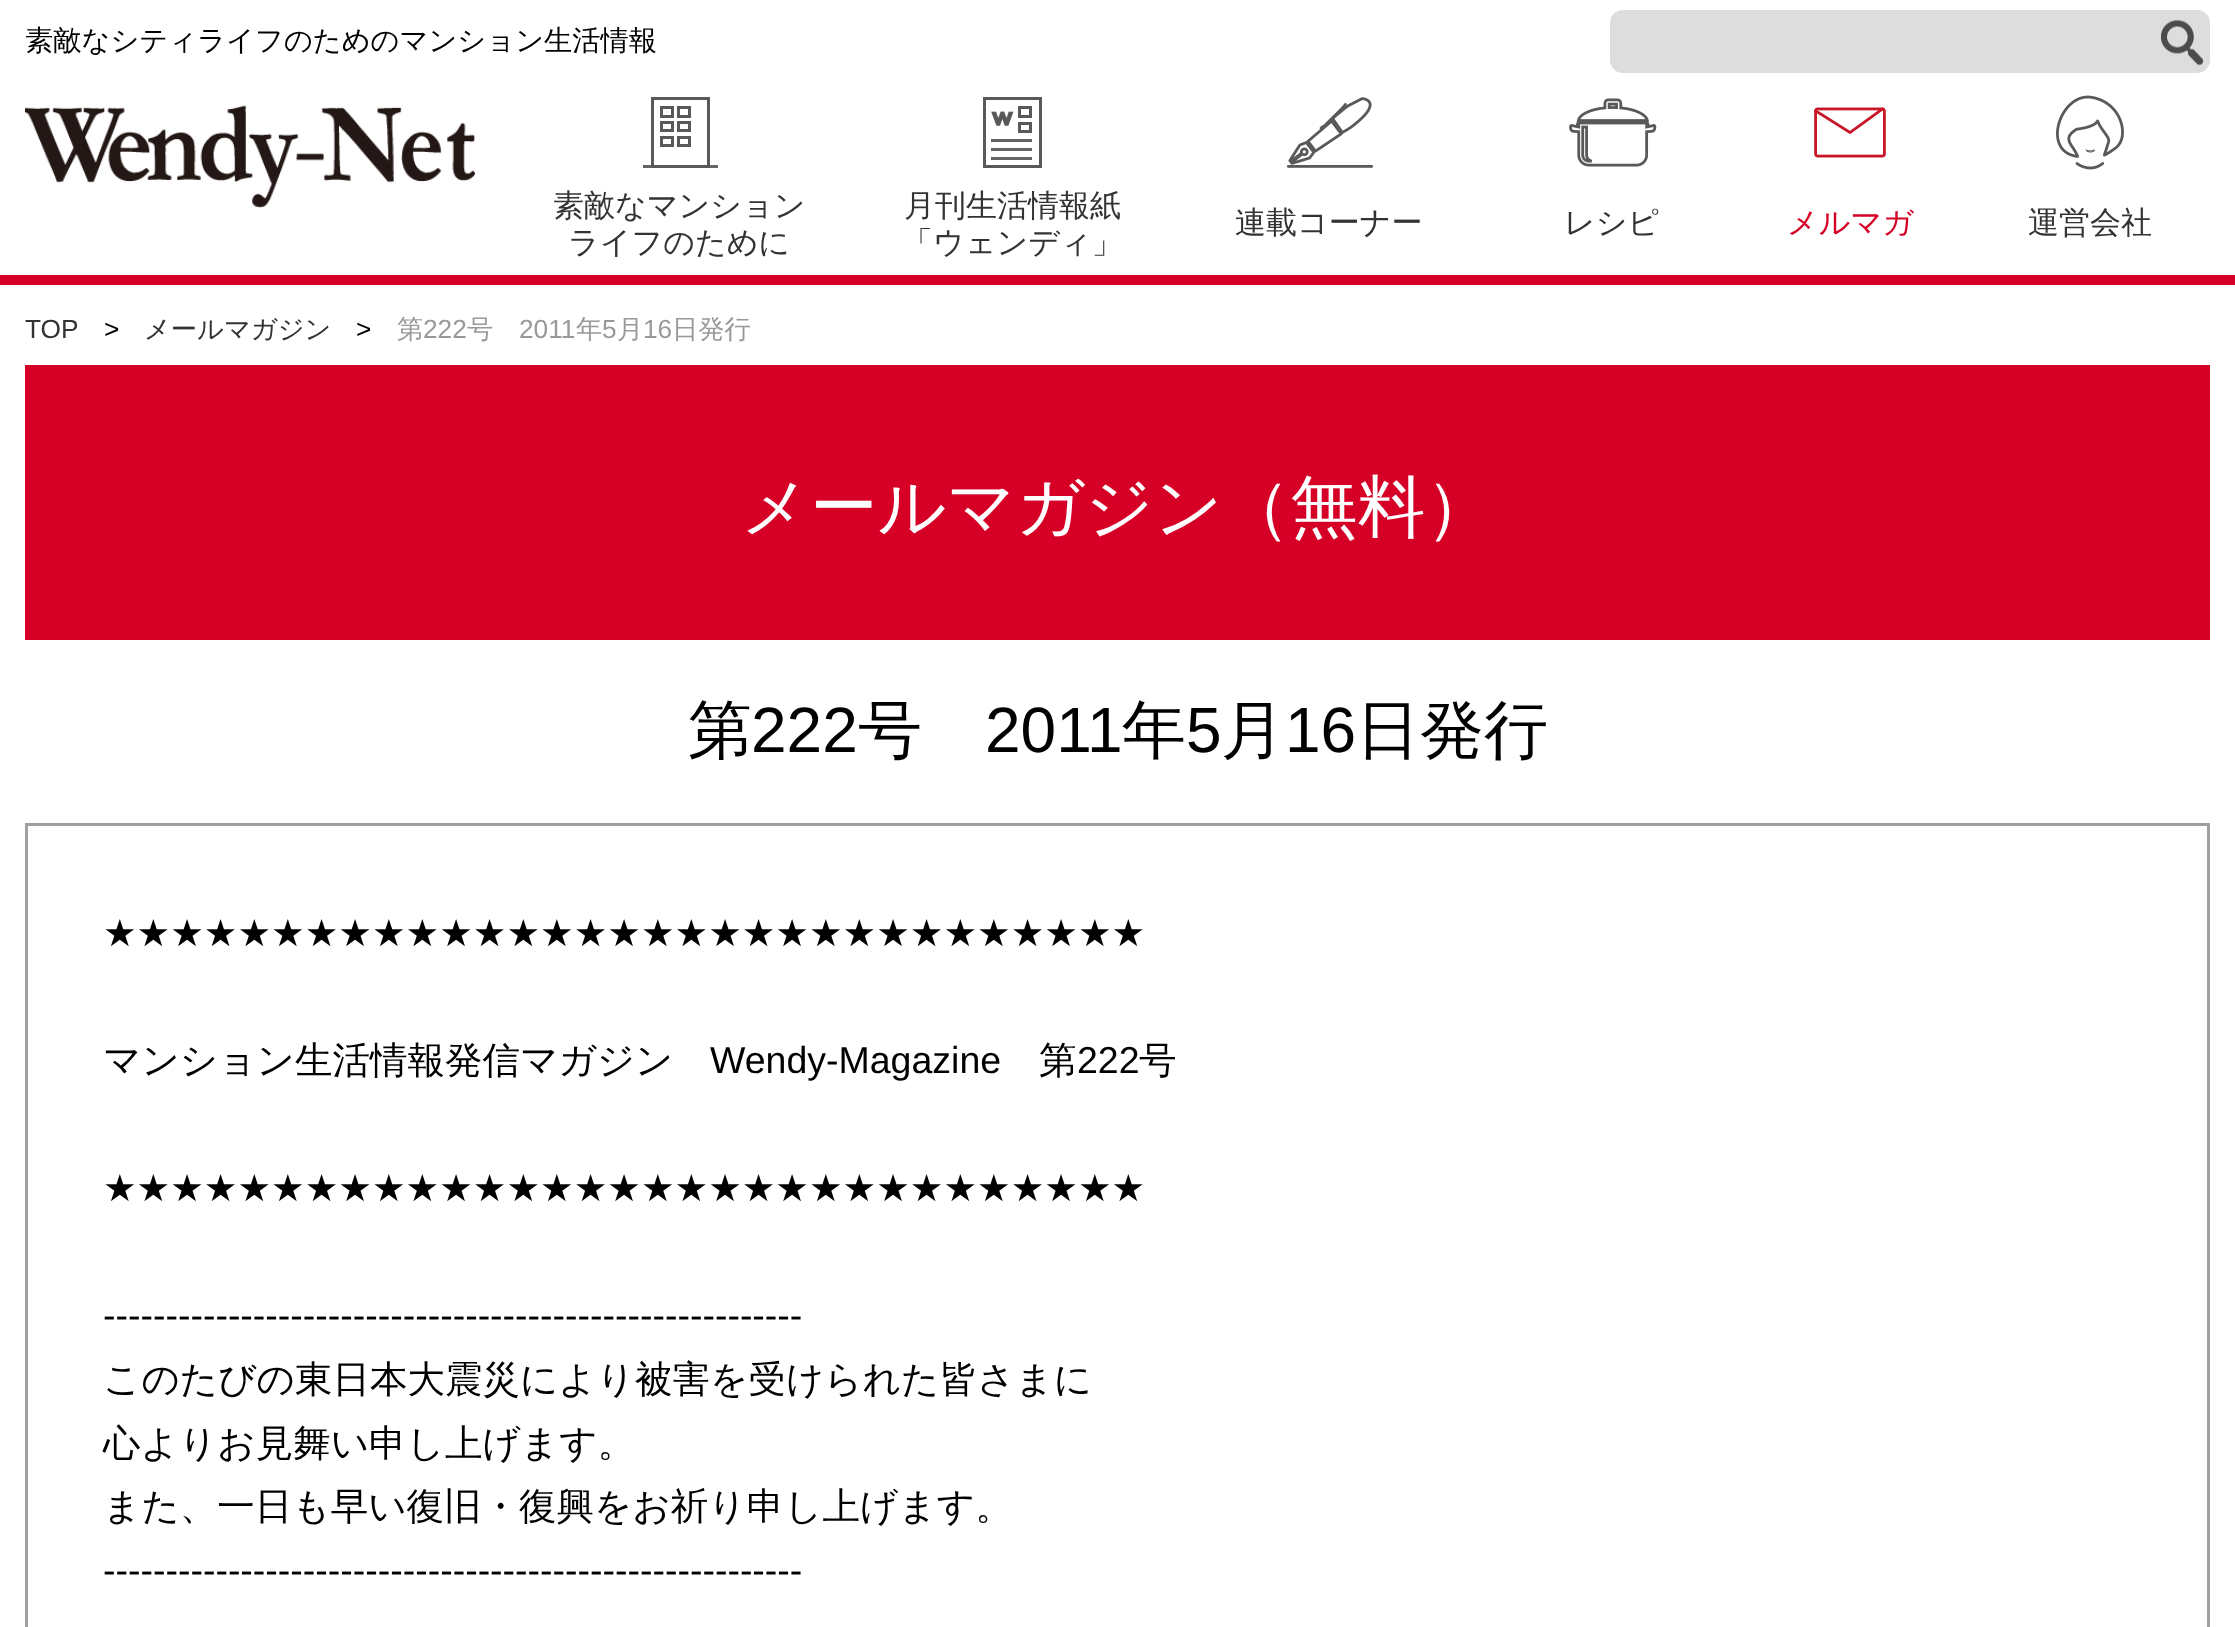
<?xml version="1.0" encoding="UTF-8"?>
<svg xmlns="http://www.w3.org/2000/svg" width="2235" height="1627">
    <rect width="100%" height="100%" fill="#FFFFFF"/>
    <rect x="0" y="275" width="2235" height="10" fill="#D60027"/>
    <text x="25" y="50" font-family="WenQuanYi Zen Hei" font-size="28.25" font-weight="500" fill="#000000">素敵なシティライフのためのマンション生活情報</text>
    <image x="25" y="105" width="450" height="103" href="img_01.png"/>
    <rect x="1610" y="10" width="600" height="63" rx="13" fill="#DDDDDD"/>
    <image x="2161" y="20" width="42" height="46" href="img_02.png"/>
    <rect x="652.5" y="98.5" width="56" height="68" fill="none" stroke="#5A5858" stroke-width="3"/>
    <rect x="661.5" y="107.5" width="11" height="9" fill="none" stroke="#5A5858" stroke-width="3"/>
    <rect x="678.5" y="107.5" width="11" height="9" fill="none" stroke="#5A5858" stroke-width="3"/>
    <rect x="661.5" y="122.5" width="11" height="8" fill="none" stroke="#5A5858" stroke-width="3"/>
    <rect x="678.5" y="122.5" width="11" height="8" fill="none" stroke="#5A5858" stroke-width="3"/>
    <rect x="661.5" y="137.5" width="11" height="8" fill="none" stroke="#5A5858" stroke-width="3"/>
    <rect x="678.5" y="137.5" width="11" height="8" fill="none" stroke="#5A5858" stroke-width="3"/>
    <rect x="643" y="165" width="75" height="3" fill="#5A5858" fill-opacity="0.93"/>
    <text x="553" y="216" font-family="WenQuanYi Zen Hei" font-size="31" font-weight="500" fill="#333333">素敵なマンション</text>
    <text x="568" y="253" font-family="WenQuanYi Zen Hei" font-size="31" font-weight="500" fill="#333333">ライフのために</text>
    <image x="983" y="97" width="59" height="71" href="img_03.png"/>
    <text x="904" y="216" font-family="WenQuanYi Zen Hei" font-size="31" font-weight="500" fill="#333333">月刊生活情報紙</text>
    <text x="902" y="253" font-family="WenQuanYi Zen Hei" font-size="31" font-weight="500" fill="#333333">「ウェンディ」</text>
    <image x="1286" y="97" width="88" height="71" href="img_04.png"/>
    <text x="1235" y="233" font-family="WenQuanYi Zen Hei" font-size="31" font-weight="500" fill="#333333">連載コーナー</text>
    <image x="1569" y="98" width="88" height="69" href="img_05.png"/>
    <text x="1564" y="233" font-family="WenQuanYi Zen Hei" font-size="31" font-weight="500" fill="#333333">レシピ</text>
    <image x="1814" y="107" width="72" height="51" href="img_06.png"/>
    <text x="1787" y="233" font-family="WenQuanYi Zen Hei" font-size="31" font-weight="500" fill="#D60027">メルマガ</text>
    <image x="2056" y="95" width="68" height="75" href="img_07.png"/>
    <text x="2028" y="233" font-family="WenQuanYi Zen Hei" font-size="31" font-weight="500" fill="#333333">運営会社</text>
    <text x="25" y="338" font-family="Liberation Sans" font-size="26.25" fill="#333333">TOP</text>
    <text x="104" y="338" font-family="Liberation Sans" font-size="26.25" fill="#000000">&gt;</text>
    <text x="144" y="338" font-family="WenQuanYi Zen Hei" font-size="26.25" font-weight="500" fill="#333333">メールマガジン</text>
    <text x="356" y="338" font-family="Liberation Sans" font-size="26.25" fill="#000000">&gt;</text>
    <text x="397" y="338" font-family="WenQuanYi Zen Hei" font-size="26.25" font-weight="500" fill="#999999">第</text>
    <text x="423" y="338" font-family="Liberation Sans" font-size="26.25" fill="#999999">222</text>
    <text x="467" y="338" font-family="WenQuanYi Zen Hei" font-size="26.25" font-weight="500" fill="#999999">号</text>
    <text x="519" y="338" font-family="Liberation Sans" font-size="26.25" fill="#999999">2011</text>
    <text x="576" y="338" font-family="WenQuanYi Zen Hei" font-size="26.25" font-weight="500" fill="#999999">年</text>
    <text x="602" y="338" font-family="Liberation Sans" font-size="26.25" fill="#999999">5</text>
    <text x="617" y="338" font-family="WenQuanYi Zen Hei" font-size="26.25" font-weight="500" fill="#999999">月</text>
    <text x="643" y="338" font-family="Liberation Sans" font-size="26.25" fill="#999999">16</text>
    <text x="672" y="338" font-family="WenQuanYi Zen Hei" font-size="26.25" font-weight="500" fill="#999999">日発行</text>
    <rect x="25" y="365" width="2185" height="275" fill="#D60027"/>
    <text x="741" y="530" font-family="WenQuanYi Zen Hei" font-size="67.5" font-weight="500" fill="#FFFFFF">メールマガジン（無料）</text>
    <text x="688" y="752" font-family="WenQuanYi Zen Hei" font-size="64" font-weight="500" fill="#000000">第</text>
    <text x="751" y="752" font-family="Liberation Sans" font-size="64" fill="#000000">222</text>
    <text x="858" y="752" font-family="WenQuanYi Zen Hei" font-size="64" font-weight="500" fill="#000000">号</text>
    <text x="985" y="752" font-family="Liberation Sans" font-size="64" fill="#000000">2011</text>
    <text x="1122" y="752" font-family="WenQuanYi Zen Hei" font-size="64" font-weight="500" fill="#000000">年</text>
    <text x="1186" y="752" font-family="Liberation Sans" font-size="64" fill="#000000">5</text>
    <text x="1221" y="752" font-family="WenQuanYi Zen Hei" font-size="64" font-weight="500" fill="#000000">月</text>
    <text x="1285" y="752" font-family="Liberation Sans" font-size="64" fill="#000000">16</text>
    <text x="1356" y="752" font-family="WenQuanYi Zen Hei" font-size="64" font-weight="500" fill="#000000">日発行</text>
    <rect x="26.5" y="824.5" width="2182" height="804" fill="none" stroke="#9FA0A0" stroke-width="3"/>
    <text x="103" y="946" font-family="DejaVu Sans" font-size="37.5" fill="#000000">★★★★★★★★★★★★★★★★★★★★★★★★★★★★★★★</text>
    <text x="103" y="1073" font-family="WenQuanYi Zen Hei" font-size="37.5" font-weight="500" fill="#000000">マンション生活情報発信マガジン</text>
    <text x="710" y="1073" font-family="Liberation Sans" font-size="37.5" fill="#000000">Wendy-Magazine</text>
    <text x="1039" y="1073" font-family="WenQuanYi Zen Hei" font-size="37.5" font-weight="500" fill="#000000">第</text>
    <text x="1077" y="1073" font-family="Liberation Sans" font-size="37.5" fill="#000000">222</text>
    <text x="1139" y="1073" font-family="WenQuanYi Zen Hei" font-size="37.5" font-weight="500" fill="#000000">号</text>
    <text x="103" y="1201" font-family="DejaVu Sans" font-size="37.5" fill="#000000">★★★★★★★★★★★★★★★★★★★★★★★★★★★★★★★</text>
    <text x="103" y="1328" font-family="Liberation Sans" font-size="37.5" fill="#000000">--------------------------------------------------------</text>
    <text font-family="WenQuanYi Zen Hei" font-size="37.5" font-weight="500" fill="#000000">
        <tspan x="103" y="1392">このたびの東日本大震災により被害を受けられた皆さまに</tspan>
        <tspan x="103" y="1456">心よりお見舞い申し上げます。</tspan>
        <tspan x="103" y="1519">また、一日も早い復旧・復興をお祈り申し上げます。</tspan>
    </text>
    <text x="103" y="1583" font-family="Liberation Sans" font-size="37.5" fill="#000000">--------------------------------------------------------</text>
</svg>
